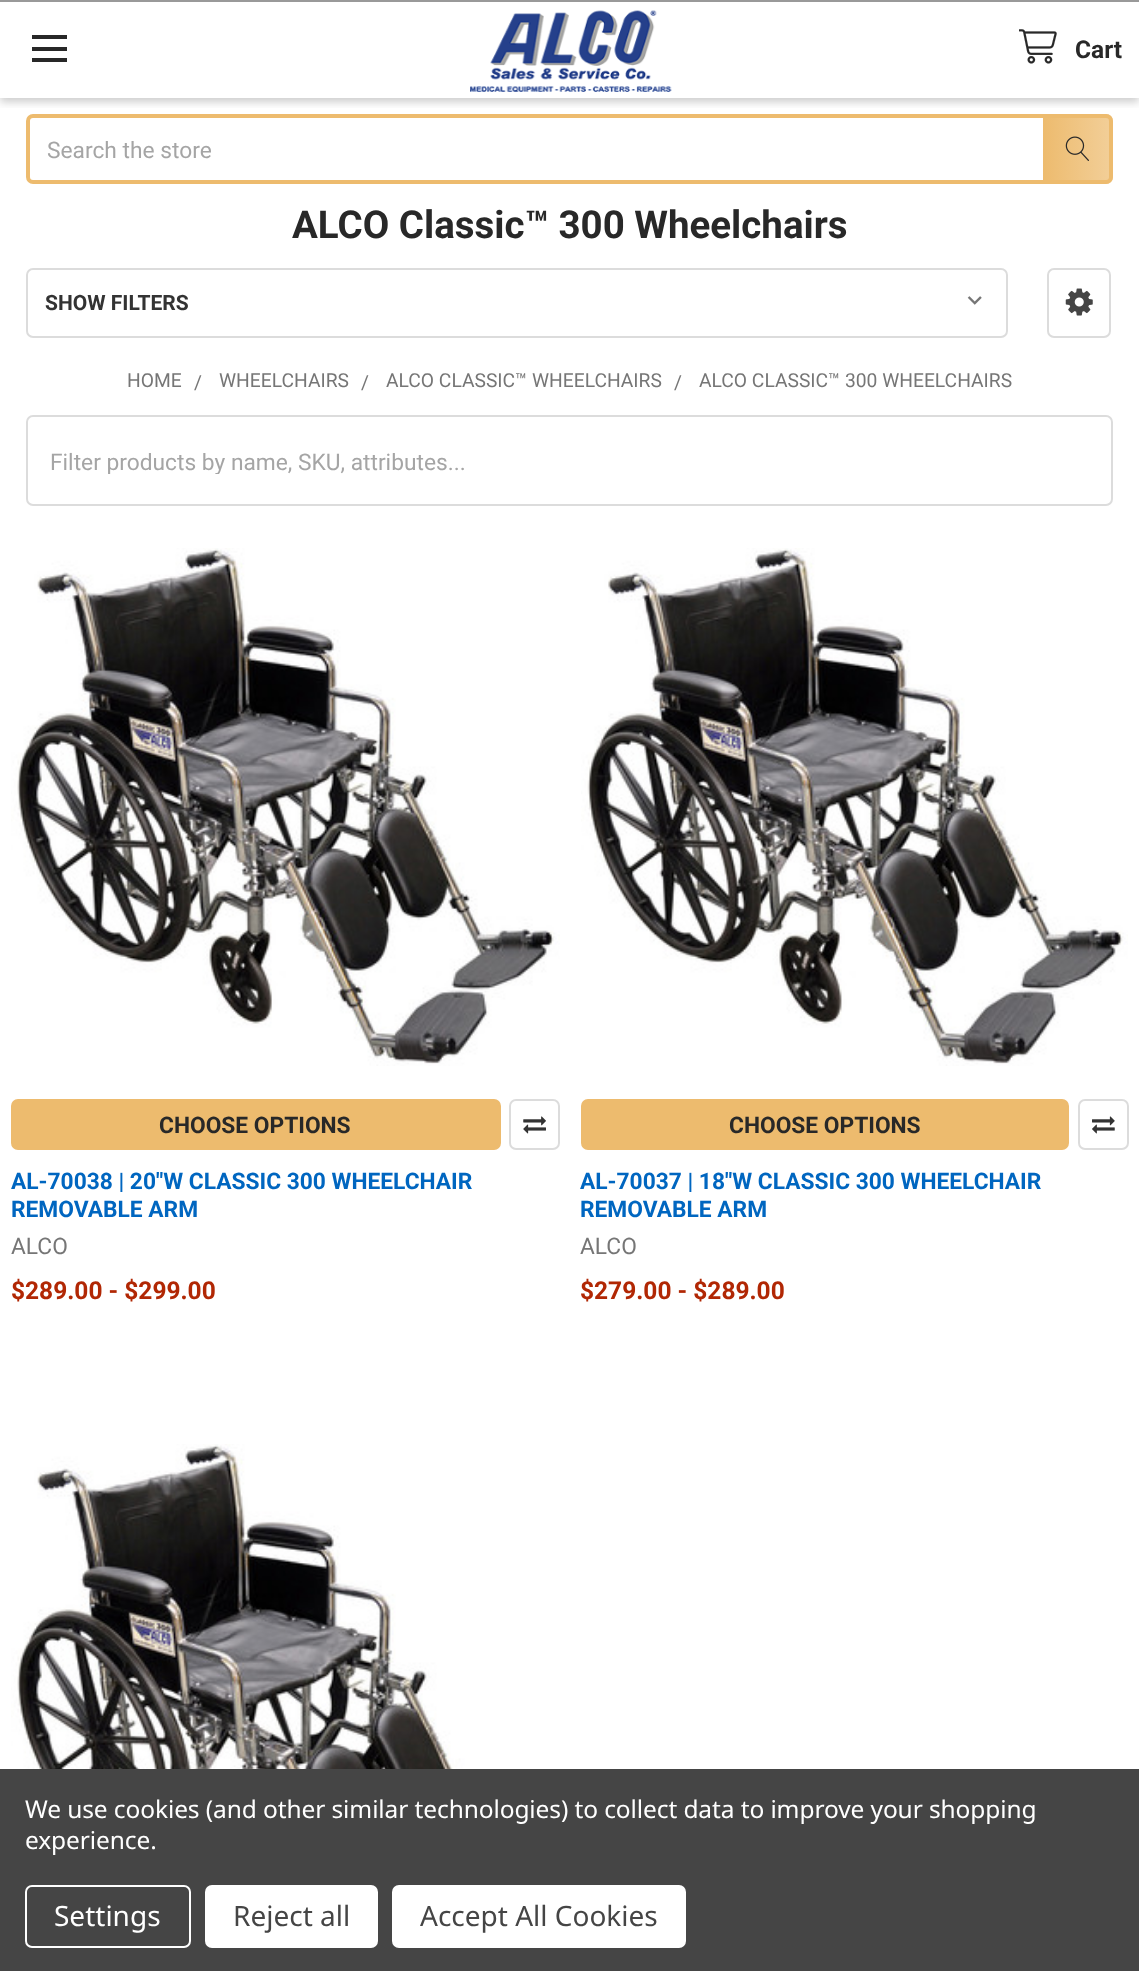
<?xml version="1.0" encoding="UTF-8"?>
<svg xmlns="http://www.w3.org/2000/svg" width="1139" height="1971">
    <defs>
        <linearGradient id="g1" gradientUnits="userSpaceOnUse" x1="1043" y1="149" x2="1113" y2="149"><stop offset="0" stop-color="#EDBB6E"/><stop offset="1" stop-color="#EDBB6E" stop-opacity="0.7"/></linearGradient>
        <clipPath id="clip1"><rect x="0" y="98" width="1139" height="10"/></clipPath>
        <filter id="blur1" x="-50%" y="-200%" width="200%" height="500%"><feGaussianBlur stdDeviation="4.5"/></filter>
        <clipPath id="clip2"><rect x="51" y="448" width="1038" height="26"/></clipPath>
    </defs>
    <rect width="100%" height="100%" fill="#FFFFFF"/>
    <rect x="28" y="116" width="1083" height="66" rx="5" fill="none" stroke="#EDBB6E" stroke-width="4"/>
    <path d="M 1043 114 H 1106 C 1110 114 1113 117 1113 121 V 177 C 1113 181 1110 184 1106 184 H 1043 Z" fill="url(#g1)"/>
    <g clip-path="url(#clip1)">
        <rect x="0" y="4" width="1139" height="98" fill="#000000" fill-opacity="0.2" filter="url(#blur1)"/>
    </g>
    <rect x="0" y="0" width="1139" height="2" fill="#999999"/>
    <rect x="32" y="47" width="35" height="4" fill="#282828"/>
    <rect x="32" y="35" width="35" height="4" fill="#282828"/>
    <rect x="32" y="58" width="35" height="4" fill="#282828"/>
    <image x="470" y="10" width="202" height="82" href="img_01.png"/>
    <image x="1019" y="29" width="38" height="35" href="img_02.png"/>
    <text x="1075" y="58" font-family="Roboto" font-size="24.5" font-weight="700" fill="#282828">Cart</text>
    <text x="47" y="158" font-family="Roboto" font-size="22.75" fill="#A5A5A5">Search the store</text>
    <image x="1065" y="136" width="24" height="25" href="img_03.png"/>
    <text x="292" y="238" font-family="Roboto" font-size="38.5" font-weight="700" fill="#282828">ALCO Classic™ 300 Wheelchairs</text>
    <rect x="27" y="269" width="980" height="68" rx="6" fill="none" stroke="#DCDCDC" stroke-width="2"/>
    <text x="45" y="310" font-family="Roboto" font-size="21" font-weight="700" fill="#333333">SHOW FILTERS</text>
    <image x="967" y="296" width="15" height="9" href="img_04.png"/>
    <rect x="1048" y="269" width="62" height="68" rx="6" fill="none" stroke="#DCDCDC" stroke-width="2"/>
    <image x="1065" y="288" width="28" height="28" href="img_05.png"/>
    <text x="127" y="387" font-family="Roboto" font-size="19.25" fill="#767676">HOME</text>
    <text x="194" y="389" font-family="Roboto" font-size="19.25" fill="#767676">/</text>
    <text x="219" y="387" font-family="Roboto" font-size="19.25" fill="#767676">WHEELCHAIRS</text>
    <text x="361" y="389" font-family="Roboto" font-size="19.25" fill="#767676">/</text>
    <text x="386" y="387" font-family="Roboto" font-size="19.25" fill="#767676">ALCO CLASSIC™ WHEELCHAIRS</text>
    <text x="674" y="389" font-family="Roboto" font-size="19.25" fill="#767676">/</text>
    <text x="699" y="387" font-family="Roboto" font-size="19.25" fill="#767676">ALCO CLASSIC™ 300 WHEELCHAIRS</text>
    <rect x="27" y="416" width="1085" height="89" rx="6" fill="none" stroke="#DCDCDC" stroke-width="2"/>
    <g clip-path="url(#clip2)">
        <text x="50" y="470" font-family="Roboto" font-size="22.75" fill="#A5A5A5">Filter products by name, SKU, attributes...</text>
    </g>
    <image x="11" y="548" width="549" height="518" href="img_06.png"/>
    <rect x="12" y="1100" width="488" height="49" rx="6" fill="#EDBB6E" stroke="#EDBB6E" stroke-width="2"/>
    <text x="159" y="1133" font-family="Roboto" font-size="22.75" font-weight="700" fill="#282828">CHOOSE OPTIONS</text>
    <rect x="510" y="1100" width="49" height="49" rx="6" fill="none" stroke="#DCDCDC" stroke-width="2"/>
    <image x="523" y="1116" width="23" height="18" href="img_07.png"/>
    <text font-family="Roboto" font-size="22.75" font-weight="700" fill="#0066C0">
        <tspan x="11" y="1189">AL-70038 | 20"W CLASSIC 300 WHEELCHAIR</tspan>
        <tspan x="11" y="1217">REMOVABLE ARM</tspan>
    </text>
    <text x="11" y="1254" font-family="Roboto" font-size="22.75" fill="#767676">ALCO</text>
    <text x="11" y="1299" font-family="Roboto" font-size="24.5" font-weight="700" fill="#B12704">$289.00 - $299.00</text>
    <image x="581" y="548" width="547" height="518" href="img_08.png"/>
    <rect x="582" y="1100" width="486" height="49" rx="6" fill="#EDBB6E" stroke="#EDBB6E" stroke-width="2"/>
    <text x="729" y="1133" font-family="Roboto" font-size="22.75" font-weight="700" fill="#282828">CHOOSE OPTIONS</text>
    <rect x="1079" y="1100" width="49" height="49" rx="6" fill="none" stroke="#DCDCDC" stroke-width="2"/>
    <image x="1092" y="1116" width="23" height="18" href="img_09.png"/>
    <text font-family="Roboto" font-size="22.75" font-weight="700" fill="#0066C0">
        <tspan x="580" y="1189">AL-70037 | 18"W CLASSIC 300 WHEELCHAIR</tspan>
        <tspan x="580" y="1217">REMOVABLE ARM</tspan>
    </text>
    <text x="580" y="1254" font-family="Roboto" font-size="22.75" fill="#767676">ALCO</text>
    <text x="580" y="1299" font-family="Roboto" font-size="24.5" font-weight="700" fill="#B12704">$279.00 - $289.00</text>
    <image x="11" y="1444" width="549" height="325" href="img_10.png"/>
    <rect x="0" y="1769" width="1139" height="202" fill="#454545"/>
    <text font-family="Noto Sans" font-size="24.5" letter-spacing="-0.1" fill="#FFFFFF">
        <tspan x="25" y="1818">We use cookies (and other similar technologies) to collect data to improve your shopping</tspan>
        <tspan x="25" y="1849">experience.</tspan>
    </text>
    <rect x="26" y="1886" width="164" height="61" rx="6" fill="none" stroke="#FFFFFF" stroke-width="2"/>
    <text x="54" y="1926" font-family="Noto Sans" font-size="28" fill="#FFFFFF">Settings</text>
    <rect x="205" y="1885" width="173" height="63" rx="7" fill="#FFFFFF"/>
    <text x="233" y="1926" font-family="Noto Sans" font-size="28" fill="#454545">Reject all</text>
    <rect x="392" y="1885" width="294" height="63" rx="7" fill="#FFFFFF"/>
    <text x="420" y="1926" font-family="Noto Sans" font-size="28" fill="#454545">Accept All Cookies</text>
</svg>
